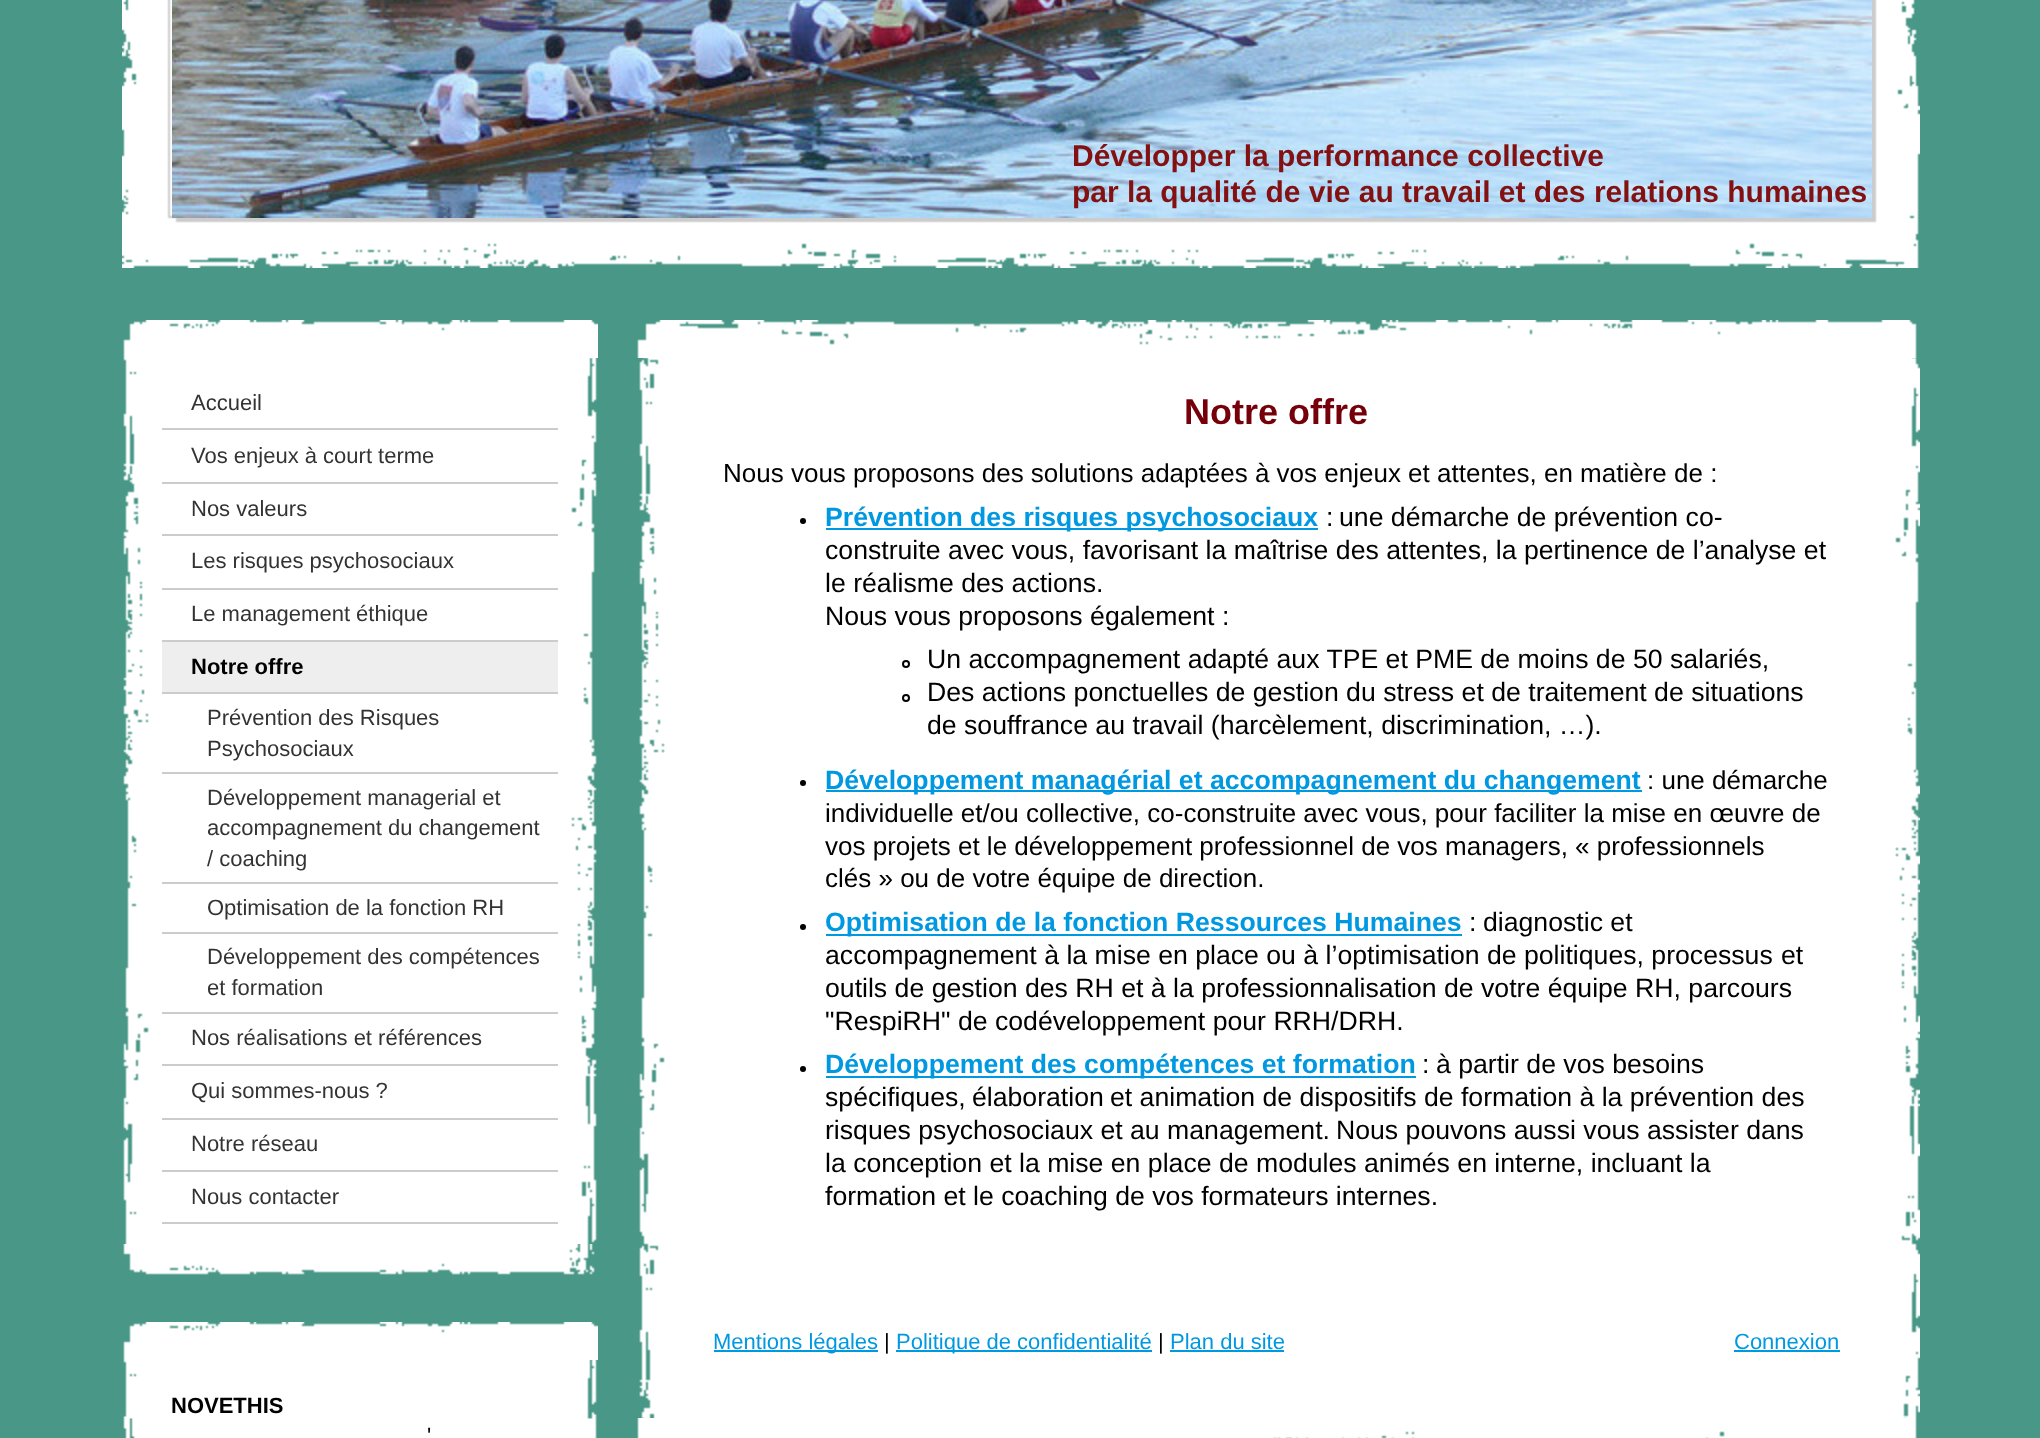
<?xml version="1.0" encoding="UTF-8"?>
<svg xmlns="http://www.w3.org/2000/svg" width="2040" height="1438">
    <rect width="100%" height="100%" fill="#489787"/>
    <image x="122" y="0" width="1798" height="268" href="img_01.png"/>
    <image x="172" y="0" width="1700" height="218" href="img_02.png"/>
    <text font-family="Liberation Sans" font-size="30" font-weight="700" fill="#831111">
        <tspan x="1072" y="166">Développer la performance collective</tspan>
        <tspan x="1072" y="202">par la qualité de vie au travail et des relations humaines</tspan>
    </text>
    <image x="123" y="320" width="475" height="38" href="img_03.png"/>
    <image x="123" y="358" width="474" height="886" href="img_04.png"/>
    <rect x="162" y="428" width="396" height="2" fill="#CCCCCC"/>
    <text x="191" y="410" font-family="Liberation Sans" font-size="22" fill="#333333">Accueil</text>
    <rect x="162" y="482" width="396" height="2" fill="#CCCCCC"/>
    <text x="191" y="463" font-family="Liberation Sans" font-size="22" fill="#333333">Vos enjeux à court terme</text>
    <rect x="162" y="534" width="396" height="2" fill="#CCCCCC"/>
    <text x="191" y="516" font-family="Liberation Sans" font-size="22" fill="#333333">Nos valeurs</text>
    <rect x="162" y="588" width="396" height="2" fill="#CCCCCC"/>
    <text x="191" y="568" font-family="Liberation Sans" font-size="22" fill="#333333">Les risques psychosociaux</text>
    <rect x="162" y="640" width="396" height="2" fill="#CCCCCC"/>
    <text x="191" y="621" font-family="Liberation Sans" font-size="22" fill="#333333">Le management éthique</text>
    <rect x="162" y="642" width="396" height="50" fill="#EEEEEE"/>
    <rect x="162" y="692" width="396" height="2" fill="#CCCCCC"/>
    <text x="191" y="674" font-family="Liberation Sans" font-size="22" font-weight="700" fill="#000000">Notre offre</text>
    <rect x="162" y="772" width="396" height="2" fill="#CCCCCC"/>
    <text font-family="Liberation Sans" font-size="22" fill="#333333">
        <tspan x="207" y="725">Prévention des Risques</tspan>
        <tspan x="207" y="756">Psychosociaux</tspan>
    </text>
    <rect x="162" y="882" width="396" height="2" fill="#CCCCCC"/>
    <text font-family="Liberation Sans" font-size="22" fill="#333333">
        <tspan x="207" y="805">Développement managerial et</tspan>
        <tspan x="207" y="835">accompagnement du changement</tspan>
        <tspan x="207" y="866">/ coaching</tspan>
    </text>
    <rect x="162" y="932" width="396" height="2" fill="#CCCCCC"/>
    <text x="207" y="915" font-family="Liberation Sans" font-size="22" fill="#333333">Optimisation de la fonction RH</text>
    <rect x="162" y="1012" width="396" height="2" fill="#CCCCCC"/>
    <text font-family="Liberation Sans" font-size="22" fill="#333333">
        <tspan x="207" y="964">Développement des compétences</tspan>
        <tspan x="207" y="995">et formation</tspan>
    </text>
    <rect x="162" y="1064" width="396" height="2" fill="#CCCCCC"/>
    <text x="191" y="1045" font-family="Liberation Sans" font-size="22" fill="#333333">Nos réalisations et références</text>
    <rect x="162" y="1118" width="396" height="2" fill="#CCCCCC"/>
    <text x="191" y="1098" font-family="Liberation Sans" font-size="22" fill="#333333">Qui sommes-nous ?</text>
    <rect x="162" y="1170" width="396" height="2" fill="#CCCCCC"/>
    <text x="191" y="1151" font-family="Liberation Sans" font-size="22" fill="#333333">Notre réseau</text>
    <rect x="162" y="1222" width="396" height="2" fill="#CCCCCC"/>
    <text x="191" y="1204" font-family="Liberation Sans" font-size="22" fill="#333333">Nous contacter</text>
    <image x="123" y="1244" width="472" height="31" href="img_05.png"/>
    <image x="123" y="1322" width="475" height="38" href="img_03.png"/>
    <image x="123" y="1360" width="474" height="78" href="img_06.png"/>
    <text x="171" y="1413" font-family="Liberation Sans" font-size="22" font-weight="700" fill="#000000">NOVETHIS</text>
    <text x="427" y="1443" font-family="Liberation Sans" font-size="22" fill="#000000">'</text>
    <image x="637" y="320" width="1280" height="38" href="img_07.png"/>
    <image x="639" y="358" width="1281" height="1060" href="img_08.png"/>
    <text x="1184" y="424" font-family="Liberation Sans" font-size="36" font-weight="700" fill="#760009">Notre offre</text>
    <text x="723" y="482" font-family="Liberation Sans" font-size="26" fill="#000000">Nous vous proposons des solutions adaptées à vos enjeux et attentes, en matière de :</text>
    <circle cx="803" cy="521" r="3" fill="#000000"/>
    <rect x="826" y="528" width="492" height="2" fill="#0099E1"/>
    <text x="825" y="526" font-family="Liberation Sans" font-size="26.65" font-weight="700" fill="#0099E1">Prévention des risques psychosociaux</text>
    <text x="1326" y="526" font-family="Liberation Sans" font-size="26.65" fill="#000000">:</text>
    <text x="1339" y="526" font-family="Liberation Sans" font-size="26.65" fill="#000000">une démarche de prévention co-</text>
    <text font-family="Liberation Sans" font-size="26.65" fill="#000000">
        <tspan x="825" y="559">construite avec vous, favorisant la maîtrise des attentes, la pertinence de l’analyse et</tspan>
        <tspan x="825" y="592">le réalisme des actions.</tspan>
        <tspan x="825" y="625">Nous vous proposons également :</tspan>
    </text>
    <circle cx="906" cy="664" r="3" fill="none" stroke="#000000" stroke-width="2"/>
    <text x="927" y="668" font-family="Liberation Sans" font-size="26.65" fill="#000000">Un accompagnement adapté aux TPE et PME de moins de 50 salariés,</text>
    <circle cx="906" cy="698" r="3" fill="none" stroke="#000000" stroke-width="2"/>
    <text font-family="Liberation Sans" font-size="26.65" fill="#000000">
        <tspan x="927" y="701">Des actions ponctuelles de gestion du stress et de traitement de situations</tspan>
        <tspan x="927" y="734">de souffrance au travail (harcèlement, discrimination, …).</tspan>
    </text>
    <circle cx="803" cy="783" r="3" fill="#000000"/>
    <rect x="826" y="790" width="816" height="2" fill="#0099E1"/>
    <text x="825" y="789" font-family="Liberation Sans" font-size="26.65" font-weight="700" fill="#0099E1">Développement managérial et accompagnement du changement</text>
    <text x="1647" y="789" font-family="Liberation Sans" font-size="26" fill="#000000">: une démarche</text>
    <text font-family="Liberation Sans" font-size="26" fill="#000000">
        <tspan x="825" y="822">individuelle et/ou collective, co-construite avec vous, pour faciliter la mise en œuvre de</tspan>
        <tspan x="825" y="855">vos projets et le développement professionnel de vos managers, « professionnels</tspan>
        <tspan x="825" y="887">clés » ou de votre équipe de direction.</tspan>
    </text>
    <circle cx="803" cy="927" r="3" fill="#000000"/>
    <rect x="826" y="934" width="636" height="2" fill="#0099E1"/>
    <text x="825" y="931" font-family="Liberation Sans" font-size="26.65" font-weight="700" fill="#0099E1">Optimisation de la fonction Ressources Humaines</text>
    <text x="1469" y="931" font-family="Liberation Sans" font-size="26.65" fill="#000000">:</text>
    <text x="1483" y="931" font-family="Liberation Sans" font-size="26.65" fill="#000000">diagnostic et</text>
    <text x="825" y="964" font-family="Liberation Sans" font-size="26.65" fill="#000000">accompagnement à la mise en place ou à l’optimisation de politiques, processus</text>
    <text x="1781" y="964" font-family="Liberation Sans" font-size="26.65" fill="#000000">et</text>
    <text font-family="Liberation Sans" font-size="26.65" fill="#000000">
        <tspan x="825" y="997">outils de gestion des RH et à la professionnalisation de votre équipe RH, parcours</tspan>
        <tspan x="825" y="1030">"RespiRH" de codéveloppement pour RRH/DRH.</tspan>
    </text>
    <circle cx="803" cy="1069" r="3" fill="#000000"/>
    <rect x="826" y="1076" width="590" height="2" fill="#0099E1"/>
    <text x="825" y="1073" font-family="Liberation Sans" font-size="26.65" font-weight="700" fill="#0099E1">Développement des compétences et formation</text>
    <text x="1422" y="1073" font-family="Liberation Sans" font-size="26.65" fill="#000000">:</text>
    <text x="1436" y="1073" font-family="Liberation Sans" font-size="26.65" fill="#000000">à partir de vos besoins</text>
    <text x="825" y="1106" font-family="Liberation Sans" font-size="26.65" fill="#000000">spécifiques,</text>
    <text x="972" y="1106" font-family="Liberation Sans" font-size="26.65" fill="#000000">élaboration</text>
    <text x="1110" y="1106" font-family="Liberation Sans" font-size="26.65" fill="#000000">et animation de dispositifs de formation à la prévention des</text>
    <text x="825" y="1139" font-family="Liberation Sans" font-size="26.65" fill="#000000">risques psychosociaux et au management.</text>
    <text x="1336" y="1139" font-family="Liberation Sans" font-size="26.65" fill="#000000">Nous pouvons aussi vous assister dans</text>
    <text font-family="Liberation Sans" font-size="26.65" fill="#000000">
        <tspan x="825" y="1172">la conception et la mise en place de modules animés en interne, incluant la</tspan>
        <tspan x="825" y="1205">formation et le coaching de vos formateurs internes.</tspan>
    </text>
    <rect x="714" y="1350" width="164" height="2" fill="#0099E1"/>
    <text x="713" y="1349" font-family="Liberation Sans" font-size="22" fill="#0099E1">Mentions légales</text>
    <text x="884" y="1349" font-family="Liberation Sans" font-size="22" fill="#000000">|</text>
    <rect x="896" y="1350" width="256" height="2" fill="#0099E1"/>
    <text x="896" y="1349" font-family="Liberation Sans" font-size="22" fill="#0099E1">Politique de confidentialité</text>
    <text x="1158" y="1349" font-family="Liberation Sans" font-size="22" fill="#000000">|</text>
    <text x="1170" y="1349" font-family="Liberation Sans" font-size="22" fill="#0099E1">Plan du site</text>
    <rect x="1170" y="1350" width="114" height="2" fill="#0099E1"/>
    <text x="1734" y="1349" font-family="Liberation Sans" font-size="22" fill="#0099E1">Connexion</text>
    <rect x="1734" y="1350" width="106" height="2" fill="#0099E1"/>
    <image x="637" y="1418" width="1280" height="20" href="img_09.png"/>
</svg>
